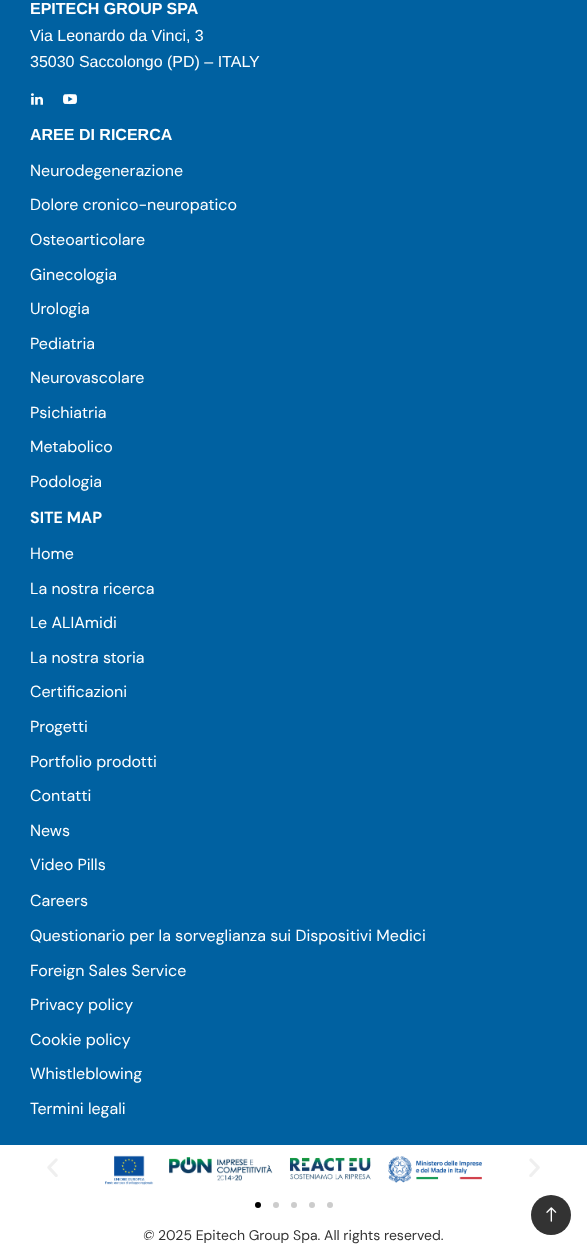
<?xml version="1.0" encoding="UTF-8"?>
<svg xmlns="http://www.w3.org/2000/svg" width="587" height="1251">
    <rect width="100%" height="100%" fill="#0061A1"/>
    <text x="30" y="14" font-family="Liberation Sans" font-size="16" font-weight="700" fill="#FFFFFF">EPITECH GROUP SPA</text>
    <text font-family="Liberation Sans" font-size="16" fill="#FFFFFF">
        <tspan x="30" y="41">Via Leonardo da Vinci, 3</tspan>
        <tspan x="30" y="67">35030 Saccolongo (PD) – ITALY</tspan>
    </text>
    <image x="31" y="93" width="12" height="12" href="img_01.png"/>
    <image x="63" y="94" width="14" height="11" href="img_02.png"/>
    <text x="30" y="140" font-family="Liberation Sans" font-size="16" font-weight="700" fill="#FFFFFF">AREE DI RICERCA</text>
    <text x="30" y="176" font-family="DM Sans" font-size="16" fill="#FFFFFF">Neurodegenerazione</text>
    <text x="30" y="210" font-family="DM Sans" font-size="16" fill="#FFFFFF">Dolore cronico-neuropatico</text>
    <text x="30" y="245" font-family="DM Sans" font-size="16" fill="#FFFFFF">Osteoarticolare</text>
    <text x="30" y="280" font-family="DM Sans" font-size="16" fill="#FFFFFF">Ginecologia</text>
    <text x="30" y="314" font-family="DM Sans" font-size="16" fill="#FFFFFF">Urologia</text>
    <text x="30" y="349" font-family="DM Sans" font-size="16" fill="#FFFFFF">Pediatria</text>
    <text x="30" y="383" font-family="DM Sans" font-size="16" fill="#FFFFFF">Neurovascolare</text>
    <text x="30" y="418" font-family="DM Sans" font-size="16" fill="#FFFFFF">Psichiatria</text>
    <text x="30" y="452" font-family="DM Sans" font-size="16" fill="#FFFFFF">Metabolico</text>
    <text x="30" y="487" font-family="DM Sans" font-size="16" fill="#FFFFFF">Podologia</text>
    <text x="30" y="523" font-family="DM Sans" font-size="16" font-weight="700" fill="#FFFFFF">SITE MAP</text>
    <text x="30" y="559" font-family="DM Sans" font-size="16" fill="#FFFFFF">Home</text>
    <text x="30" y="594" font-family="DM Sans" font-size="16" fill="#FFFFFF">La nostra ricerca</text>
    <text x="30" y="628" font-family="DM Sans" font-size="16" fill="#FFFFFF">Le ALIAmidi</text>
    <text x="30" y="663" font-family="DM Sans" font-size="16" fill="#FFFFFF">La nostra storia</text>
    <text x="30" y="697" font-family="DM Sans" font-size="16" fill="#FFFFFF">Certificazioni</text>
    <text x="30" y="732" font-family="DM Sans" font-size="16" fill="#FFFFFF">Progetti</text>
    <text x="30" y="767" font-family="DM Sans" font-size="16" fill="#FFFFFF">Portfolio prodotti</text>
    <text x="30" y="801" font-family="DM Sans" font-size="16" fill="#FFFFFF">Contatti</text>
    <text x="30" y="836" font-family="DM Sans" font-size="16" fill="#FFFFFF">News</text>
    <text x="30" y="870" font-family="DM Sans" font-size="16" fill="#FFFFFF">Video Pills</text>
    <text x="30" y="906" font-family="DM Sans" font-size="16" fill="#FFFFFF">Careers</text>
    <text x="30" y="941" font-family="DM Sans" font-size="16" fill="#FFFFFF">Questionario per la sorveglianza sui Dispositivi Medici</text>
    <text x="30" y="976" font-family="DM Sans" font-size="16" fill="#FFFFFF">Foreign Sales Service</text>
    <text x="30" y="1010" font-family="DM Sans" font-size="16" fill="#FFFFFF">Privacy policy</text>
    <text x="30" y="1045" font-family="DM Sans" font-size="16" fill="#FFFFFF">Cookie policy</text>
    <text x="30" y="1079" font-family="DM Sans" font-size="16" fill="#FFFFFF">Whistleblowing</text>
    <text x="30" y="1114" font-family="DM Sans" font-size="16" fill="#FFFFFF">Termini legali</text>
    <rect x="0" y="1145" width="587" height="106" fill="#FFFFFF"/>
    <image x="47" y="1158" width="11" height="19" href="img_03.png"/>
    <image x="105" y="1155" width="377" height="30" href="img_04.png"/>
    <image x="529" y="1158" width="11" height="19" href="img_05.png"/>
    <circle cx="258" cy="1205" r="3" fill="#000000"/>
    <circle cx="276" cy="1205" r="3" fill="#CCCCCC"/>
    <circle cx="294" cy="1205" r="3" fill="#CCCCCC"/>
    <circle cx="312" cy="1205" r="3" fill="#CCCCCC"/>
    <circle cx="330" cy="1205" r="3" fill="#CCCCCC"/>
    <text x="143" y="1240" font-family="DM Sans" font-size="14" font-style="italic" fill="#333333">©</text>
    <text x="158" y="1240" font-family="DM Sans" font-size="14" fill="#333333">2025 Epitech Group Spa. All rights reserved.</text>
    <circle cx="551" cy="1215" r="20" fill="#333333"/>
    <image x="546" y="1207" width="11" height="15" href="img_06.png"/>
</svg>
